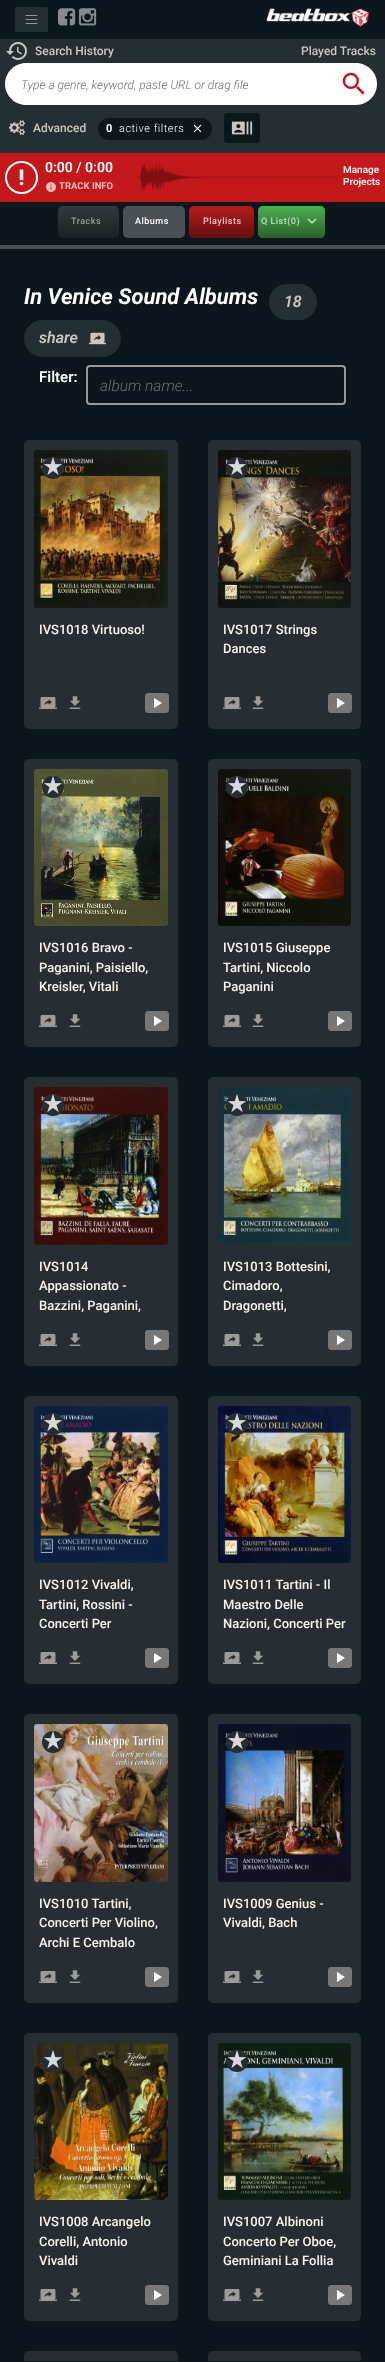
<?xml version="1.0" encoding="UTF-8"?>
<svg xmlns="http://www.w3.org/2000/svg" width="385" height="2362">
    <defs>
        <linearGradient id="g1" gradientUnits="userSpaceOnUse" x1="73" y1="206" x2="73" y2="238"><stop offset="0" stop-color="#000000" stop-opacity="0"/><stop offset="1" stop-color="#000000" stop-opacity="0.45"/></linearGradient>
        <linearGradient id="g2" gradientUnits="userSpaceOnUse" x1="205" y1="206" x2="205" y2="238"><stop offset="0" stop-color="#000000" stop-opacity="0"/><stop offset="1" stop-color="#000000" stop-opacity="0.45"/></linearGradient>
        <linearGradient id="g3" gradientUnits="userSpaceOnUse" x1="272" y1="206" x2="272" y2="238"><stop offset="0" stop-color="#000000" stop-opacity="0"/><stop offset="1" stop-color="#000000" stop-opacity="0.45"/></linearGradient>
        <linearGradient id="g4" gradientUnits="userSpaceOnUse" x1="309" y1="206" x2="309" y2="238"><stop offset="0" stop-color="#000000" stop-opacity="0"/><stop offset="1" stop-color="#000000" stop-opacity="0.45"/></linearGradient>
    </defs>
    <rect width="100%" height="100%" fill="#0B171D"/>
    <rect x="15" y="7" width="33" height="25" rx="2" fill="#252F33"/>
    <image x="25" y="15" width="13" height="9" href="img_01.png"/>
    <image x="58" y="8" width="18" height="18" href="img_02.png"/>
    <image x="79" y="8" width="18" height="18" href="img_03.png"/>
    <image x="266" y="8" width="104" height="19" href="img_04.png"/>
    <rect x="0" y="39" width="385" height="114" fill="#252F33"/>
    <image x="6" y="42" width="21" height="18" href="img_05.png"/>
    <text x="35" y="55" font-family="Roboto" font-size="12" font-weight="500" fill="#CAC7C3">Search History</text>
    <text x="301" y="55" font-family="Roboto" font-size="12" font-weight="500" fill="#CAC7C3">Played Tracks</text>
    <path d="M 26 63 H 331 V 105 H 26 C 14.5 105 5 95.5 5 84 C 5 72.5 14.5 63 26 63 Z" fill="#FFFFFF"/>
    <text x="21" y="89" font-family="Roboto" font-size="12" font-weight="300" font-style="italic" fill="#6B6F70">Type a genre, keyword, paste URL or drag file</text>
    <path d="M 331 63 H 356 C 367.5 63 377 72.5 377 84 C 377 95.5 367.5 105 356 105 H 331 Z" fill="#FFFFFF"/>
    <image x="342" y="72" width="23" height="23" href="img_06.png"/>
    <image x="9" y="120" width="17" height="15" href="img_07.png"/>
    <text x="33" y="132" font-family="Roboto" font-size="12" font-weight="500" fill="#CAC7C3">Advanced</text>
    <rect x="98" y="118" width="114" height="22" rx="11" fill="#0B171D"/>
    <text x="106" y="132" font-family="Roboto" font-size="11" font-weight="700" letter-spacing="0.5" fill="#FFFFFF">0</text>
    <text x="119" y="132" font-family="Roboto" font-size="11" font-weight="300" letter-spacing="0.5" fill="#FFFFFF">active filters</text>
    <image x="193" y="124" width="9" height="9" href="img_08.png"/>
    <rect x="225" y="114" width="34" height="28" rx="2" fill="#0B171D" stroke="#0B171D" stroke-width="2"/>
    <image x="231" y="121" width="22" height="14" href="img_09.png"/>
    <rect x="0" y="153" width="385" height="49" fill="#C3181C"/>
    <circle cx="21.5" cy="177.5" r="15.5" fill="none" stroke="#FFFFFF" stroke-width="2"/>
    <image x="19" y="169" width="5" height="17" href="img_10.png"/>
    <text x="45" y="172" font-family="Roboto" font-size="14" font-weight="600" fill="#FFFFFF">0:00 / 0:00</text>
    <image x="46" y="182" width="10" height="10" href="img_11.png"/>
    <text x="59" y="189" font-family="Roboto" font-size="9.5" font-weight="700" fill="#ECBDBA">TRACK INFO</text>
    <image x="136" y="162" width="202" height="31" href="img_12.png"/>
    <text font-family="Roboto" font-size="10" font-weight="600" fill="#F9F4EE">
        <tspan x="343" y="173">Manage</tspan>
        <tspan x="343" y="185">Projects</tspan>
    </text>
    <rect x="0" y="245" width="385" height="4" fill="#495156"/>
    <rect x="58" y="206" width="61" height="32" rx="5" fill="#313B3F"/>
    <rect x="58" y="206" width="61" height="32" rx="5" fill="url(#g1)"/>
    <text x="71" y="224" font-family="Roboto" font-size="9" font-weight="500" letter-spacing="0.5" fill="#9B9B9A">Tracks</text>
    <rect x="123" y="206" width="62" height="32" rx="5" fill="#495156"/>
    <text x="135" y="224" font-family="Roboto" font-size="9" font-weight="500" letter-spacing="0.5" fill="#FFFFFF">Albums</text>
    <rect x="189" y="206" width="65" height="32" rx="5" fill="#B71C1C"/>
    <rect x="189" y="206" width="65" height="32" rx="5" fill="url(#g2)"/>
    <text x="203" y="224" font-family="Roboto" font-size="9" font-weight="500" letter-spacing="0.5" fill="#E3C5C5">Playlists</text>
    <path d="M 263 206 H 314 V 238 H 263 C 260 238 258 236 258 233 V 211 C 258 208 260 206 263 206 Z" fill="#4CAF50"/>
    <path d="M 263 206 H 314 V 238 H 263 C 260 238 258 236 258 233 V 211 C 258 208 260 206 263 206 Z" fill="url(#g3)"/>
    <text x="261" y="224" font-family="Roboto" font-size="9" font-weight="500" letter-spacing="0.5" fill="#C8DAC9">Q List(0)</text>
    <path d="M 303 206 H 320 C 323 206 325 208 325 211 V 233 C 325 236 323 238 320 238 H 303 Z" fill="#4CAF50"/>
    <path d="M 303 206 H 320 C 323 206 325 208 325 211 V 233 C 325 236 323 238 320 238 H 303 Z" fill="url(#g4)"/>
    <image x="307" y="218" width="10" height="6" href="img_13.png"/>
    <text x="24" y="304" font-family="Roboto" font-size="22" font-weight="700" font-style="italic" fill="#FFFFFF">In Venice Sound Albums</text>
    <rect x="269" y="284" width="48" height="36" rx="18" fill="#252F33"/>
    <text x="284" y="307" font-family="Roboto" font-size="16" font-weight="600" font-style="italic" fill="#CAC7C3">18</text>
    <rect x="24" y="320" width="97" height="37" rx="18.5" fill="#252F33"/>
    <text x="39" y="343" font-family="Roboto" font-size="16" font-weight="600" font-style="italic" fill="#CAC7C3">share</text>
    <image x="89" y="332" width="17" height="13" href="img_14.png"/>
    <text x="39" y="382" font-family="Roboto" font-size="15" font-weight="600" fill="#FFFFFF">Filter:</text>
    <rect x="87" y="366" width="258" height="38" rx="3" fill="none" stroke="#9B9B9A" stroke-width="2"/>
    <text x="100" y="391" font-family="Roboto" font-size="15.5" font-weight="300" font-style="italic" fill="#6B6F70">album name...</text>
    <rect x="24" y="440" width="154" height="289" rx="5" fill="#272E33"/>
    <image x="34" y="450" width="134" height="158" href="img_15.png"/>
    <circle cx="53" cy="468" r="11" fill="#272E33"/>
    <image x="44" y="457" width="18" height="18" href="img_16.png"/>
    <text x="39" y="634" font-family="Roboto" font-size="13" font-weight="500" fill="#F9F4EE">IVS1018 Virtuoso!</text>
    <image x="39" y="697" width="18" height="12" href="img_17.png"/>
    <image x="69" y="696" width="12" height="13" href="img_18.png"/>
    <rect x="145.5" y="693.5" width="23" height="19" rx="2.5" fill="#777777" stroke="#777777"/>
    <path d="M 154 698 L 162 703 L 154 708 Z" fill="#FFFFFF"/>
    <rect x="208" y="440" width="153" height="289" rx="5" fill="#272E33"/>
    <image x="218" y="450" width="133" height="158" href="img_19.png"/>
    <circle cx="237" cy="468" r="11" fill="#272E33"/>
    <image x="228" y="457" width="18" height="18" href="img_20.png"/>
    <text font-family="Roboto" font-size="13" font-weight="500" fill="#F9F4EE">
        <tspan x="223" y="634">IVS1017 Strings</tspan>
        <tspan x="223" y="653">Dances</tspan>
    </text>
    <image x="223" y="697" width="18" height="12" href="img_17.png"/>
    <image x="252" y="696" width="12" height="13" href="img_18.png"/>
    <rect x="328.5" y="693.5" width="23" height="19" rx="2.5" fill="#777777" stroke="#777777"/>
    <path d="M 337 698 L 345 703 L 337 708 Z" fill="#FFFFFF"/>
    <rect x="24" y="759" width="154" height="288" rx="5" fill="#272E33"/>
    <image x="34" y="769" width="134" height="157" href="img_21.png"/>
    <circle cx="53" cy="787" r="11" fill="#272E33"/>
    <image x="44" y="776" width="18" height="18" href="img_22.png"/>
    <text font-family="Roboto" font-size="13" font-weight="500" fill="#F9F4EE">
        <tspan x="39" y="952">IVS1016 Bravo -</tspan>
        <tspan x="39" y="972">Paganini, Paisiello,</tspan>
        <tspan x="39" y="991">Kreisler, Vitali</tspan>
    </text>
    <image x="39" y="1015" width="18" height="12" href="img_17.png"/>
    <image x="69" y="1014" width="12" height="13" href="img_18.png"/>
    <rect x="145.5" y="1011.5" width="23" height="19" rx="2.5" fill="#777777" stroke="#777777"/>
    <path d="M 154 1016 L 162 1021 L 154 1026 Z" fill="#FFFFFF"/>
    <rect x="208" y="759" width="153" height="288" rx="5" fill="#272E33"/>
    <image x="218" y="769" width="133" height="157" href="img_23.png"/>
    <circle cx="237" cy="787" r="11" fill="#272E33"/>
    <image x="228" y="776" width="18" height="18" href="img_24.png"/>
    <text font-family="Roboto" font-size="13" font-weight="500" fill="#F9F4EE">
        <tspan x="223" y="952">IVS1015 Giuseppe</tspan>
        <tspan x="223" y="972">Tartini, Niccolo</tspan>
        <tspan x="223" y="991">Paganini</tspan>
    </text>
    <image x="223" y="1015" width="18" height="12" href="img_17.png"/>
    <image x="252" y="1014" width="12" height="13" href="img_18.png"/>
    <rect x="328.5" y="1011.5" width="23" height="19" rx="2.5" fill="#777777" stroke="#777777"/>
    <path d="M 337 1016 L 345 1021 L 337 1026 Z" fill="#FFFFFF"/>
    <rect x="24" y="1077" width="154" height="289" rx="5" fill="#272E33"/>
    <image x="34" y="1087" width="134" height="158" href="img_25.png"/>
    <circle cx="53" cy="1105" r="11" fill="#272E33"/>
    <image x="44" y="1094" width="18" height="18" href="img_26.png"/>
    <text font-family="Roboto" font-size="13" font-weight="500" fill="#F9F4EE">
        <tspan x="39" y="1271">IVS1014</tspan>
        <tspan x="39" y="1290">Appassionato -</tspan>
        <tspan x="39" y="1310">Bazzini, Paganini,</tspan>
    </text>
    <image x="39" y="1334" width="18" height="12" href="img_17.png"/>
    <image x="69" y="1333" width="12" height="13" href="img_18.png"/>
    <rect x="145.5" y="1330.5" width="23" height="19" rx="2.5" fill="#777777" stroke="#777777"/>
    <path d="M 154 1335 L 162 1340 L 154 1345 Z" fill="#FFFFFF"/>
    <rect x="208" y="1077" width="153" height="289" rx="5" fill="#272E33"/>
    <image x="218" y="1087" width="133" height="158" href="img_27.png"/>
    <circle cx="237" cy="1105" r="11" fill="#272E33"/>
    <image x="228" y="1094" width="18" height="18" href="img_28.png"/>
    <text font-family="Roboto" font-size="13" font-weight="500" fill="#F9F4EE">
        <tspan x="223" y="1271">IVS1013 Bottesini,</tspan>
        <tspan x="223" y="1290">Cimadoro,</tspan>
        <tspan x="223" y="1310">Dragonetti,</tspan>
    </text>
    <image x="223" y="1334" width="18" height="12" href="img_17.png"/>
    <image x="252" y="1333" width="12" height="13" href="img_18.png"/>
    <rect x="328.5" y="1330.5" width="23" height="19" rx="2.5" fill="#777777" stroke="#777777"/>
    <path d="M 337 1335 L 345 1340 L 337 1345 Z" fill="#FFFFFF"/>
    <rect x="24" y="1396" width="154" height="288" rx="5" fill="#272E33"/>
    <image x="34" y="1406" width="134" height="157" href="img_29.png"/>
    <circle cx="53" cy="1424" r="11" fill="#272E33"/>
    <image x="44" y="1413" width="18" height="18" href="img_30.png"/>
    <text font-family="Roboto" font-size="13" font-weight="500" fill="#F9F4EE">
        <tspan x="39" y="1589">IVS1012 Vivaldi,</tspan>
        <tspan x="39" y="1609">Tartini, Rossini -</tspan>
        <tspan x="39" y="1628">Concerti Per</tspan>
    </text>
    <image x="39" y="1652" width="18" height="12" href="img_17.png"/>
    <image x="69" y="1651" width="12" height="13" href="img_18.png"/>
    <rect x="145.5" y="1648.5" width="23" height="19" rx="2.5" fill="#777777" stroke="#777777"/>
    <path d="M 154 1653 L 162 1658 L 154 1663 Z" fill="#FFFFFF"/>
    <rect x="208" y="1396" width="153" height="288" rx="5" fill="#272E33"/>
    <image x="218" y="1406" width="133" height="157" href="img_31.png"/>
    <circle cx="237" cy="1424" r="11" fill="#272E33"/>
    <image x="228" y="1413" width="18" height="18" href="img_32.png"/>
    <text font-family="Roboto" font-size="13" font-weight="500" fill="#F9F4EE">
        <tspan x="223" y="1589">IVS1011 Tartini - Il</tspan>
        <tspan x="223" y="1609">Maestro Delle</tspan>
        <tspan x="223" y="1628">Nazioni, Concerti Per</tspan>
    </text>
    <image x="223" y="1652" width="18" height="12" href="img_17.png"/>
    <image x="252" y="1651" width="12" height="13" href="img_18.png"/>
    <rect x="328.5" y="1648.5" width="23" height="19" rx="2.5" fill="#777777" stroke="#777777"/>
    <path d="M 337 1653 L 345 1658 L 337 1663 Z" fill="#FFFFFF"/>
    <rect x="24" y="1714" width="154" height="289" rx="5" fill="#272E33"/>
    <image x="34" y="1724" width="134" height="158" href="img_33.png"/>
    <circle cx="53" cy="1742" r="11" fill="#272E33"/>
    <image x="44" y="1731" width="18" height="18" href="img_34.png"/>
    <text font-family="Roboto" font-size="13" font-weight="500" fill="#F9F4EE">
        <tspan x="39" y="1908">IVS1010 Tartini,</tspan>
        <tspan x="39" y="1927">Concerti Per Violino,</tspan>
        <tspan x="39" y="1947">Archi E Cembalo</tspan>
    </text>
    <image x="39" y="1971" width="18" height="12" href="img_17.png"/>
    <image x="69" y="1970" width="12" height="13" href="img_18.png"/>
    <rect x="145.5" y="1967.5" width="23" height="19" rx="2.5" fill="#777777" stroke="#777777"/>
    <path d="M 154 1972 L 162 1977 L 154 1982 Z" fill="#FFFFFF"/>
    <rect x="208" y="1714" width="153" height="289" rx="5" fill="#272E33"/>
    <image x="218" y="1724" width="133" height="158" href="img_35.png"/>
    <circle cx="237" cy="1742" r="11" fill="#272E33"/>
    <image x="228" y="1731" width="18" height="18" href="img_36.png"/>
    <text font-family="Roboto" font-size="13" font-weight="500" fill="#F9F4EE">
        <tspan x="223" y="1908">IVS1009 Genius -</tspan>
        <tspan x="223" y="1927">Vivaldi, Bach</tspan>
    </text>
    <image x="223" y="1971" width="18" height="12" href="img_17.png"/>
    <image x="252" y="1970" width="12" height="13" href="img_18.png"/>
    <rect x="328.5" y="1967.5" width="23" height="19" rx="2.5" fill="#777777" stroke="#777777"/>
    <path d="M 337 1972 L 345 1977 L 337 1982 Z" fill="#FFFFFF"/>
    <rect x="24" y="2033" width="154" height="288" rx="5" fill="#272E33"/>
    <image x="34" y="2043" width="134" height="157" href="img_37.png"/>
    <circle cx="53" cy="2061" r="11" fill="#272E33"/>
    <image x="44" y="2050" width="18" height="18" href="img_38.png"/>
    <text font-family="Roboto" font-size="13" font-weight="500" fill="#F9F4EE">
        <tspan x="39" y="2226">IVS1008 Arcangelo</tspan>
        <tspan x="39" y="2246">Corelli, Antonio</tspan>
        <tspan x="39" y="2265">Vivaldi</tspan>
    </text>
    <image x="39" y="2289" width="18" height="12" href="img_17.png"/>
    <image x="69" y="2288" width="12" height="13" href="img_18.png"/>
    <rect x="145.5" y="2285.5" width="23" height="19" rx="2.5" fill="#777777" stroke="#777777"/>
    <path d="M 154 2290 L 162 2295 L 154 2300 Z" fill="#FFFFFF"/>
    <rect x="208" y="2033" width="153" height="288" rx="5" fill="#272E33"/>
    <image x="218" y="2043" width="133" height="157" href="img_39.png"/>
    <circle cx="237" cy="2061" r="11" fill="#272E33"/>
    <image x="228" y="2050" width="18" height="18" href="img_40.png"/>
    <text font-family="Roboto" font-size="13" font-weight="500" fill="#F9F4EE">
        <tspan x="223" y="2226">IVS1007 Albinoni</tspan>
        <tspan x="223" y="2246">Concerto Per Oboe,</tspan>
        <tspan x="223" y="2265">Geminiani La Follia</tspan>
    </text>
    <image x="223" y="2289" width="18" height="12" href="img_17.png"/>
    <image x="252" y="2288" width="12" height="13" href="img_18.png"/>
    <rect x="328.5" y="2285.5" width="23" height="19" rx="2.5" fill="#777777" stroke="#777777"/>
    <path d="M 337 2290 L 345 2295 L 337 2300 Z" fill="#FFFFFF"/>
    <path d="M 29 2351 H 173 C 176 2351 178 2353 178 2356 V 2361 H 24 V 2356 C 24 2353 26 2351 29 2351 Z" fill="#272E33"/>
    <path d="M 213 2351 H 356 C 359 2351 361 2353 361 2356 V 2361 H 208 V 2356 C 208 2353 210 2351 213 2351 Z" fill="#272E33"/>
</svg>
